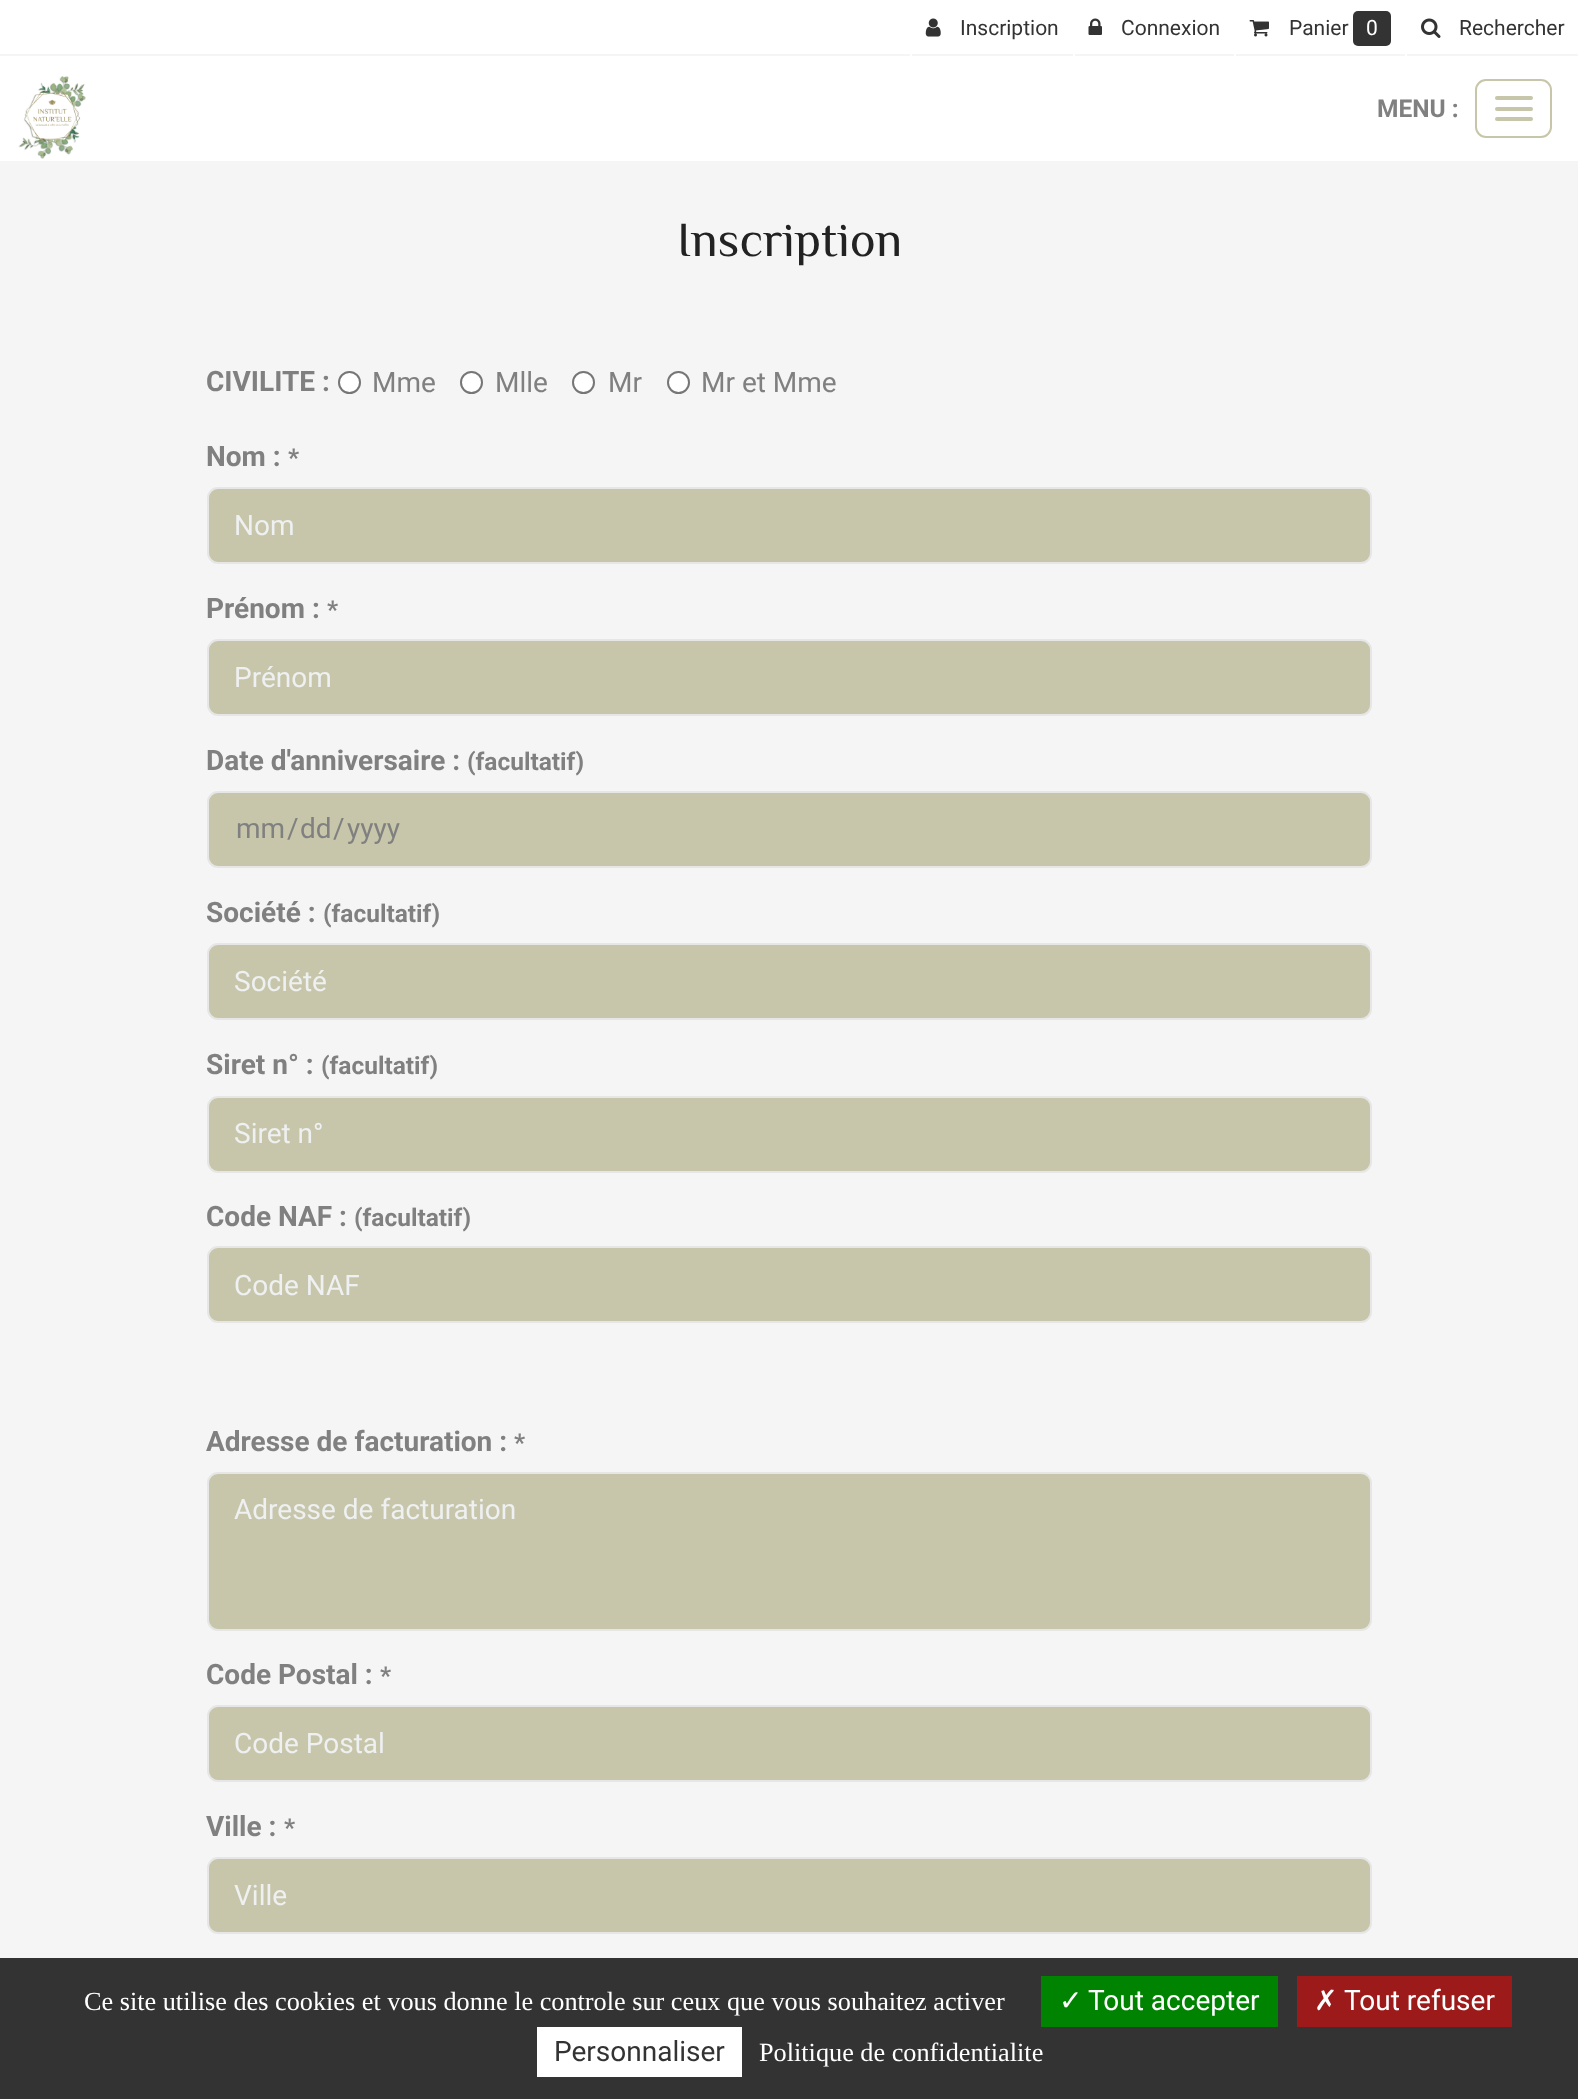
<?xml version="1.0" encoding="UTF-8"?>
<svg xmlns="http://www.w3.org/2000/svg" width="1578" height="2099">
    <rect width="100%" height="100%" fill="#F5F5F5"/>
    <rect x="0" y="0" width="1578" height="54" fill="#FFFFFF"/>
    <rect x="910" y="54" width="2" height="2" fill="#FFFFFF"/>
    <image x="925" y="18" width="16" height="19" href="img_01.png"/>
    <text x="960" y="35" font-family="Roboto" font-size="21" fill="#333333">Inscription</text>
    <rect x="1073" y="54" width="2" height="2" fill="#FFFFFF"/>
    <image x="1088" y="18" width="14" height="17" href="img_02.png"/>
    <text x="1121" y="35" font-family="Roboto" font-size="21" fill="#333333">Connexion</text>
    <rect x="1234" y="54" width="2" height="2" fill="#FFFFFF"/>
    <image x="1249" y="20" width="20" height="17" href="img_03.png"/>
    <text x="1289" y="35" font-family="Roboto" font-size="21" fill="#333333">Panier</text>
    <rect x="1353" y="11" width="38" height="35" rx="5" fill="#333333"/>
    <text x="1366" y="35" font-family="Roboto" font-size="21" fill="#FFFFFF">0</text>
    <rect x="1405" y="54" width="2" height="2" fill="#FFFFFF"/>
    <image x="1421" y="18" width="20" height="20" href="img_04.png"/>
    <text x="1459" y="35" font-family="Roboto" font-size="21" fill="#333333">Rechercher</text>
    <rect x="0" y="56" width="1578" height="105" fill="#FFFFFF"/>
    <image x="18" y="76" width="68" height="83" href="img_05.png"/>
    <text x="1377" y="117" font-family="Roboto" font-size="24.5" font-weight="700" fill="#808080">MENU :</text>
    <rect x="1476" y="80" width="75" height="57" rx="10" fill="none" stroke="#C7C6AA" stroke-width="2"/>
    <rect x="1495" y="96" width="38" height="4" rx="2" fill="#C7C6AA"/>
    <rect x="1495" y="107" width="38" height="4" rx="2" fill="#C7C6AA"/>
    <rect x="1495" y="117" width="38" height="4" rx="2" fill="#C7C6AA"/>
    <text x="677" y="256" font-family="ZCOOL XiaoWei" font-size="49" fill="#222222">Inscription</text>
    <text x="206" y="391" font-family="Roboto" font-size="28" font-weight="700" fill="#808080">CIVILITE :</text>
    <circle cx="349.5" cy="382.5" r="10.5" fill="#FFFFFF" stroke="#767676" stroke-width="2"/>
    <text x="372" y="392" font-family="Roboto" font-size="28" fill="#808080">Mme</text>
    <circle cx="471.5" cy="382.5" r="10.5" fill="#FFFFFF" stroke="#767676" stroke-width="2"/>
    <text x="495" y="392" font-family="Roboto" font-size="28" fill="#808080">Mlle</text>
    <circle cx="583.5" cy="382.5" r="10.5" fill="#FFFFFF" stroke="#767676" stroke-width="2"/>
    <text x="608" y="392" font-family="Roboto" font-size="28" fill="#808080">Mr</text>
    <circle cx="678.5" cy="382.5" r="10.5" fill="#FFFFFF" stroke="#767676" stroke-width="2"/>
    <text x="701" y="392" font-family="Roboto" font-size="28" fill="#808080">Mr et Mme</text>
    <text x="206" y="466" font-family="Roboto" font-size="28" font-weight="700" fill="#808080">Nom :</text>
    <text x="288" y="466" font-family="Roboto" font-size="24.5" font-weight="700" fill="#808080">*</text>
    <rect x="208" y="488" width="1163" height="75" rx="10" fill="#C7C6AA" stroke="#E6E6E6" stroke-width="2"/>
    <text x="234" y="535" font-family="Roboto" font-size="28" fill="#EEF0F1">Nom</text>
    <text x="206" y="618" font-family="Roboto" font-size="28" font-weight="700" fill="#808080">Prénom :</text>
    <text x="327" y="618" font-family="Roboto" font-size="24.5" font-weight="700" fill="#808080">*</text>
    <rect x="208" y="640" width="1163" height="75" rx="10" fill="#C7C6AA" stroke="#E6E6E6" stroke-width="2"/>
    <text x="234" y="687" font-family="Roboto" font-size="28" fill="#EEF0F1">Prénom</text>
    <text x="206" y="770" font-family="Roboto" font-size="28" font-weight="700" fill="#808080">Date d'anniversaire :</text>
    <text x="467" y="770" font-family="Roboto" font-size="24.5" font-weight="700" fill="#808080">(facultatif)</text>
    <rect x="208" y="792" width="1163" height="75" rx="10" fill="#C7C6AA" stroke="#E6E6E6" stroke-width="2"/>
    <text x="236" y="838" font-family="Roboto" font-size="28" fill="#808080">mm</text>
    <text x="287" y="838" font-family="Roboto" font-size="28" fill="#808080">/</text>
    <text x="300" y="838" font-family="Roboto" font-size="28" fill="#808080">dd</text>
    <text x="333" y="838" font-family="Roboto" font-size="28" fill="#808080">/</text>
    <text x="347" y="838" font-family="Roboto" font-size="28" fill="#808080">yyyy</text>
    <text x="206" y="922" font-family="Roboto" font-size="28" font-weight="700" fill="#808080">Société :</text>
    <text x="323" y="922" font-family="Roboto" font-size="24.5" font-weight="700" fill="#808080">(facultatif)</text>
    <rect x="208" y="944" width="1163" height="75" rx="10" fill="#C7C6AA" stroke="#E6E6E6" stroke-width="2"/>
    <text x="234" y="991" font-family="Roboto" font-size="28" fill="#EEF0F1">Société</text>
    <text x="206" y="1074" font-family="Roboto" font-size="28" font-weight="700" fill="#808080">Siret n° :</text>
    <text x="321" y="1074" font-family="Roboto" font-size="24.5" font-weight="700" fill="#808080">(facultatif)</text>
    <rect x="208" y="1097" width="1163" height="75" rx="10" fill="#C7C6AA" stroke="#E6E6E6" stroke-width="2"/>
    <text x="234" y="1143" font-family="Roboto" font-size="28" fill="#EEF0F1">Siret n°</text>
    <text x="206" y="1226" font-family="Roboto" font-size="28" font-weight="700" fill="#808080">Code NAF :</text>
    <text x="354" y="1226" font-family="Roboto" font-size="24.5" font-weight="700" fill="#808080">(facultatif)</text>
    <rect x="208" y="1247" width="1163" height="75" rx="10" fill="#C7C6AA" stroke="#E6E6E6" stroke-width="2"/>
    <text x="234" y="1295" font-family="Roboto" font-size="28" fill="#EEF0F1">Code NAF</text>
    <text x="206" y="1451" font-family="Roboto" font-size="28" font-weight="700" fill="#808080">Adresse de facturation :</text>
    <text x="514" y="1451" font-family="Roboto" font-size="24.5" font-weight="700" fill="#808080">*</text>
    <rect x="208" y="1473" width="1163" height="157" rx="10" fill="#C7C6AA" stroke="#E6E6E6" stroke-width="2"/>
    <text x="234" y="1519" font-family="Roboto" font-size="28" fill="#EEF0F1">Adresse de facturation</text>
    <text x="206" y="1684" font-family="Roboto" font-size="28" font-weight="700" fill="#808080">Code Postal :</text>
    <text x="380" y="1684" font-family="Roboto" font-size="24.5" font-weight="700" fill="#808080">*</text>
    <rect x="208" y="1706" width="1163" height="75" rx="10" fill="#C7C6AA" stroke="#E6E6E6" stroke-width="2"/>
    <text x="234" y="1753" font-family="Roboto" font-size="28" fill="#EEF0F1">Code Postal</text>
    <text x="206" y="1836" font-family="Roboto" font-size="28" font-weight="700" fill="#808080">Ville :</text>
    <text x="284" y="1836" font-family="Roboto" font-size="24.5" font-weight="700" fill="#808080">*</text>
    <rect x="208" y="1858" width="1163" height="75" rx="10" fill="#C7C6AA" stroke="#E6E6E6" stroke-width="2"/>
    <text x="234" y="1905" font-family="Roboto" font-size="28" fill="#EEF0F1">Ville</text>
    <rect x="0" y="1958" width="1578" height="141" fill="#333333"/>
    <text x="84" y="2010" font-family="Liberation Serif" font-size="26.25" fill="#FFFFFF">Ce site utilise des cookies et vous donne le controle sur ceux que vous souhaitez activer</text>
    <rect x="1041" y="1976" width="237" height="51" fill="#008300"/>
    <text x="1059" y="2010" font-family="DejaVu Sans" font-size="28" fill="#FFFFFF">✓</text>
    <text x="1088" y="2010" font-family="Roboto" font-size="28" fill="#FFFFFF">Tout accepter</text>
    <rect x="1297" y="1976" width="215" height="51" fill="#9C1A1A"/>
    <text x="1314" y="2010" font-family="DejaVu Sans" font-size="28" fill="#FFFFFF">✗</text>
    <text x="1344" y="2010" font-family="Roboto" font-size="28" fill="#FFFFFF">Tout refuser</text>
    <rect x="537" y="2027" width="205" height="50" fill="#FFFFFF"/>
    <text x="554" y="2061" font-family="Roboto" font-size="28" fill="#333333">Personnaliser</text>
    <text x="759" y="2061" font-family="Liberation Serif" font-size="26.25" fill="#FFFFFF">Politique de confidentialite</text>
</svg>
